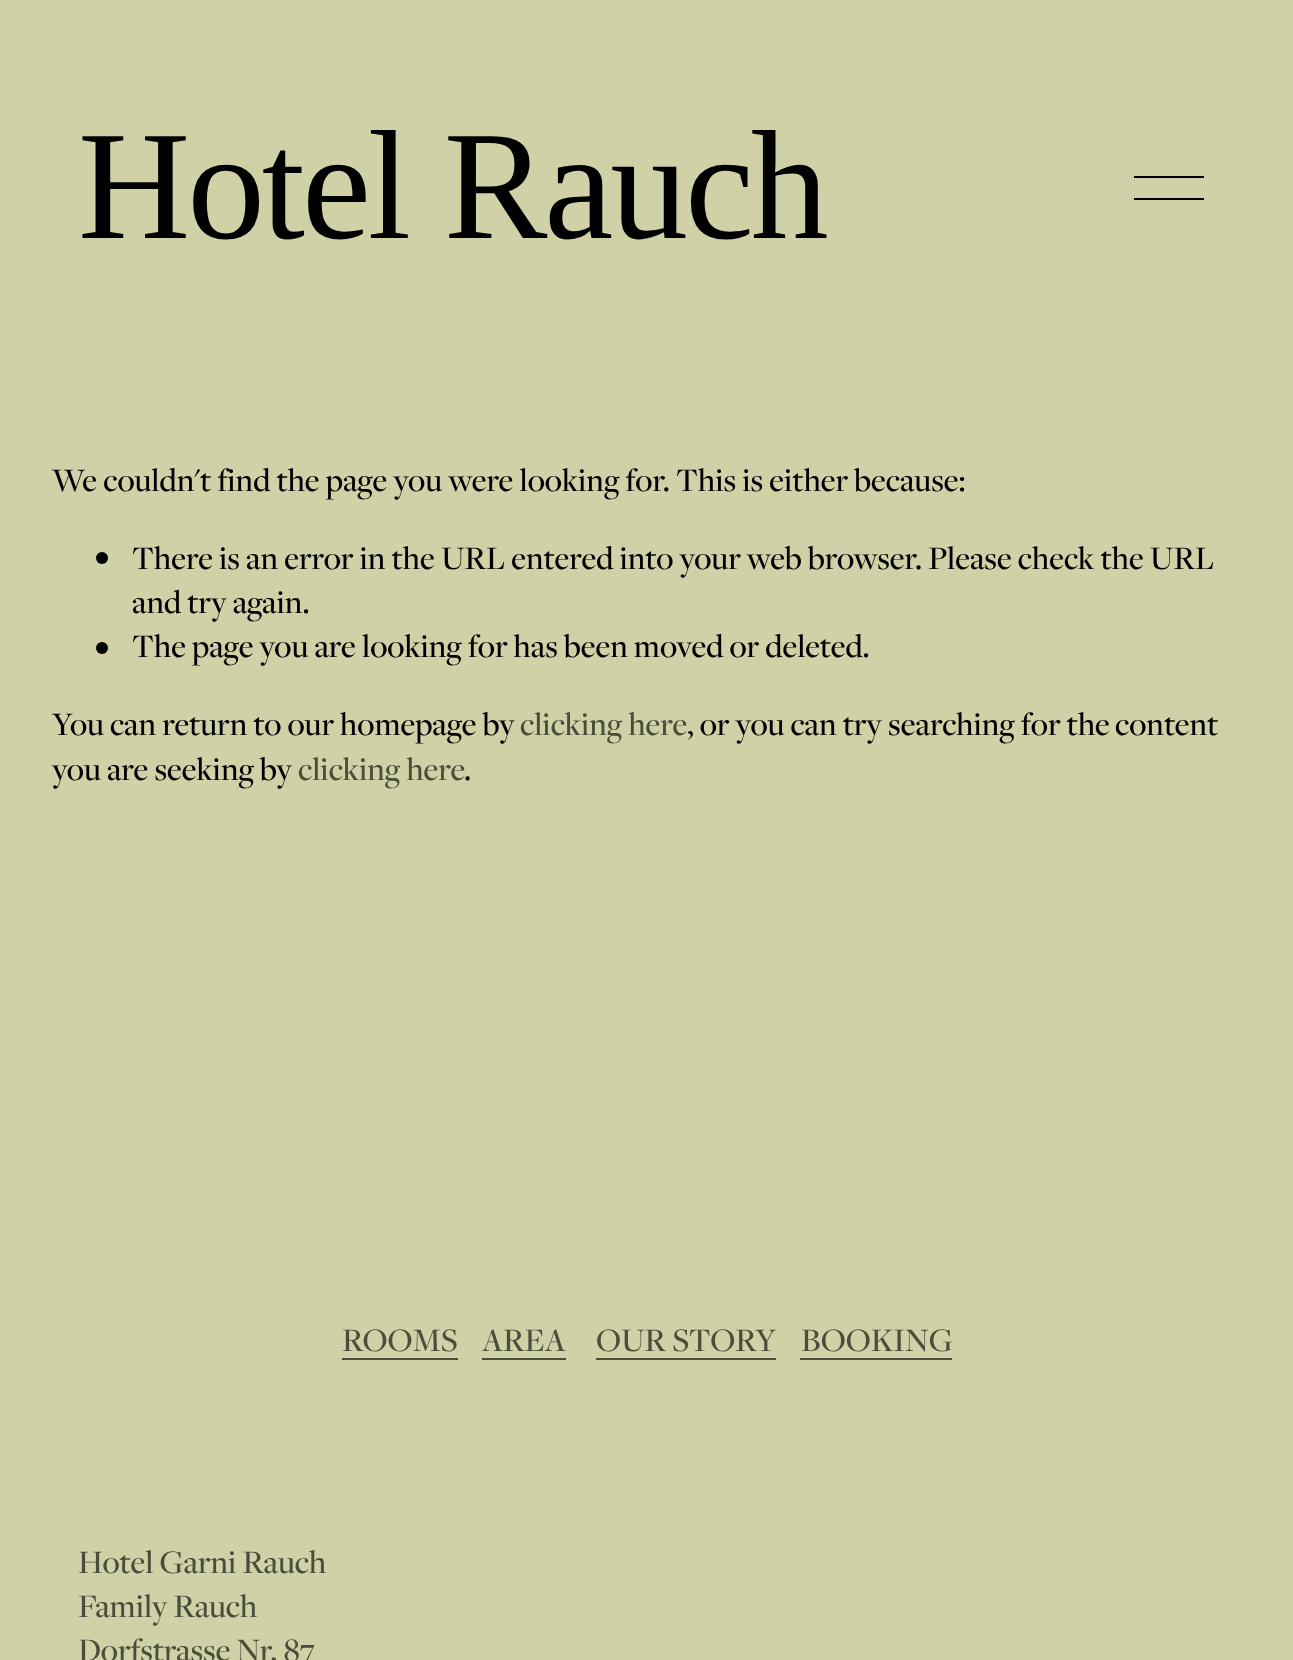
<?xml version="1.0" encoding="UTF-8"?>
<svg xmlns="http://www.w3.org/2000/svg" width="1293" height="1660">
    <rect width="100%" height="100%" fill="#D1D1A7"/>
    <text x="78" y="238" font-family="Liberation Serif" font-size="155.5" letter-spacing="-3.1" fill="#000000">Hotel Rauch</text>
    <rect x="1134" y="176" width="70" height="2" fill="#000000"/>
    <rect x="1134" y="198" width="70" height="2" fill="#000000"/>
    <text x="52" y="491" font-family="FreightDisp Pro" font-size="34" font-weight="500" fill="#000000">We couldn't find the page you were looking for. This is either because:</text>
    <circle cx="102" cy="558" r="6" fill="#000000"/>
    <text font-family="FreightDisp Pro" font-size="34" font-weight="500" fill="#000000">
        <tspan x="132" y="569">There is an error in the URL entered into your web browser. Please check the URL</tspan>
        <tspan x="132" y="613">and try again.</tspan>
    </text>
    <circle cx="102" cy="648" r="6" fill="#000000"/>
    <text x="132" y="657" font-family="FreightDisp Pro" font-size="34" font-weight="500" fill="#000000">The page you are looking for has been moved or deleted.</text>
    <text x="52" y="735" font-family="FreightDisp Pro" font-size="34" font-weight="500" fill="#000000">You can return to our homepage by</text>
    <text x="520" y="735" font-family="FreightDisp Pro" font-size="34" font-weight="500" fill="#494E3A">clicking here</text>
    <text x="687" y="735" font-family="FreightDisp Pro" font-size="34" font-weight="500" fill="#000000">, or you can try searching for the</text>
    <text x="1115" y="735" font-family="FreightDisp Pro" font-size="34" font-weight="500" fill="#000000">content</text>
    <text x="52" y="780" font-family="FreightDisp Pro" font-size="34" font-weight="500" fill="#000000">you are seeking by</text>
    <text x="298" y="780" font-family="FreightDisp Pro" font-size="34" font-weight="500" fill="#494E3A">clicking here</text>
    <text x="464" y="780" font-family="FreightDisp Pro" font-size="34" font-weight="500" fill="#000000">.</text>
    <text x="342" y="1351" font-family="FreightDisp Pro" font-size="34" font-weight="500" fill="#494E3A">ROOMS</text>
    <rect x="342" y="1358" width="116" height="2" fill="#494E3A"/>
    <text x="482" y="1351" font-family="FreightDisp Pro" font-size="34" font-weight="500" fill="#494E3A">AREA</text>
    <rect x="482" y="1358" width="84" height="2" fill="#494E3A"/>
    <text x="596" y="1351" font-family="FreightDisp Pro" font-size="34" font-weight="500" fill="#494E3A">OUR STORY</text>
    <rect x="596" y="1358" width="180" height="2" fill="#494E3A"/>
    <text x="801" y="1351" font-family="FreightDisp Pro" font-size="34" font-weight="500" fill="#494E3A">BOOKING</text>
    <rect x="800" y="1358" width="152" height="2" fill="#494E3A"/>
    <text font-family="FreightDisp Pro" font-size="34" font-weight="500" fill="#494E3A">
        <tspan x="78" y="1573">Hotel Garni Rauch</tspan>
        <tspan x="78" y="1617">Family Rauch</tspan>
        <tspan x="78" y="1661">Dorfstrasse Nr. 87</tspan>
    </text>
</svg>
